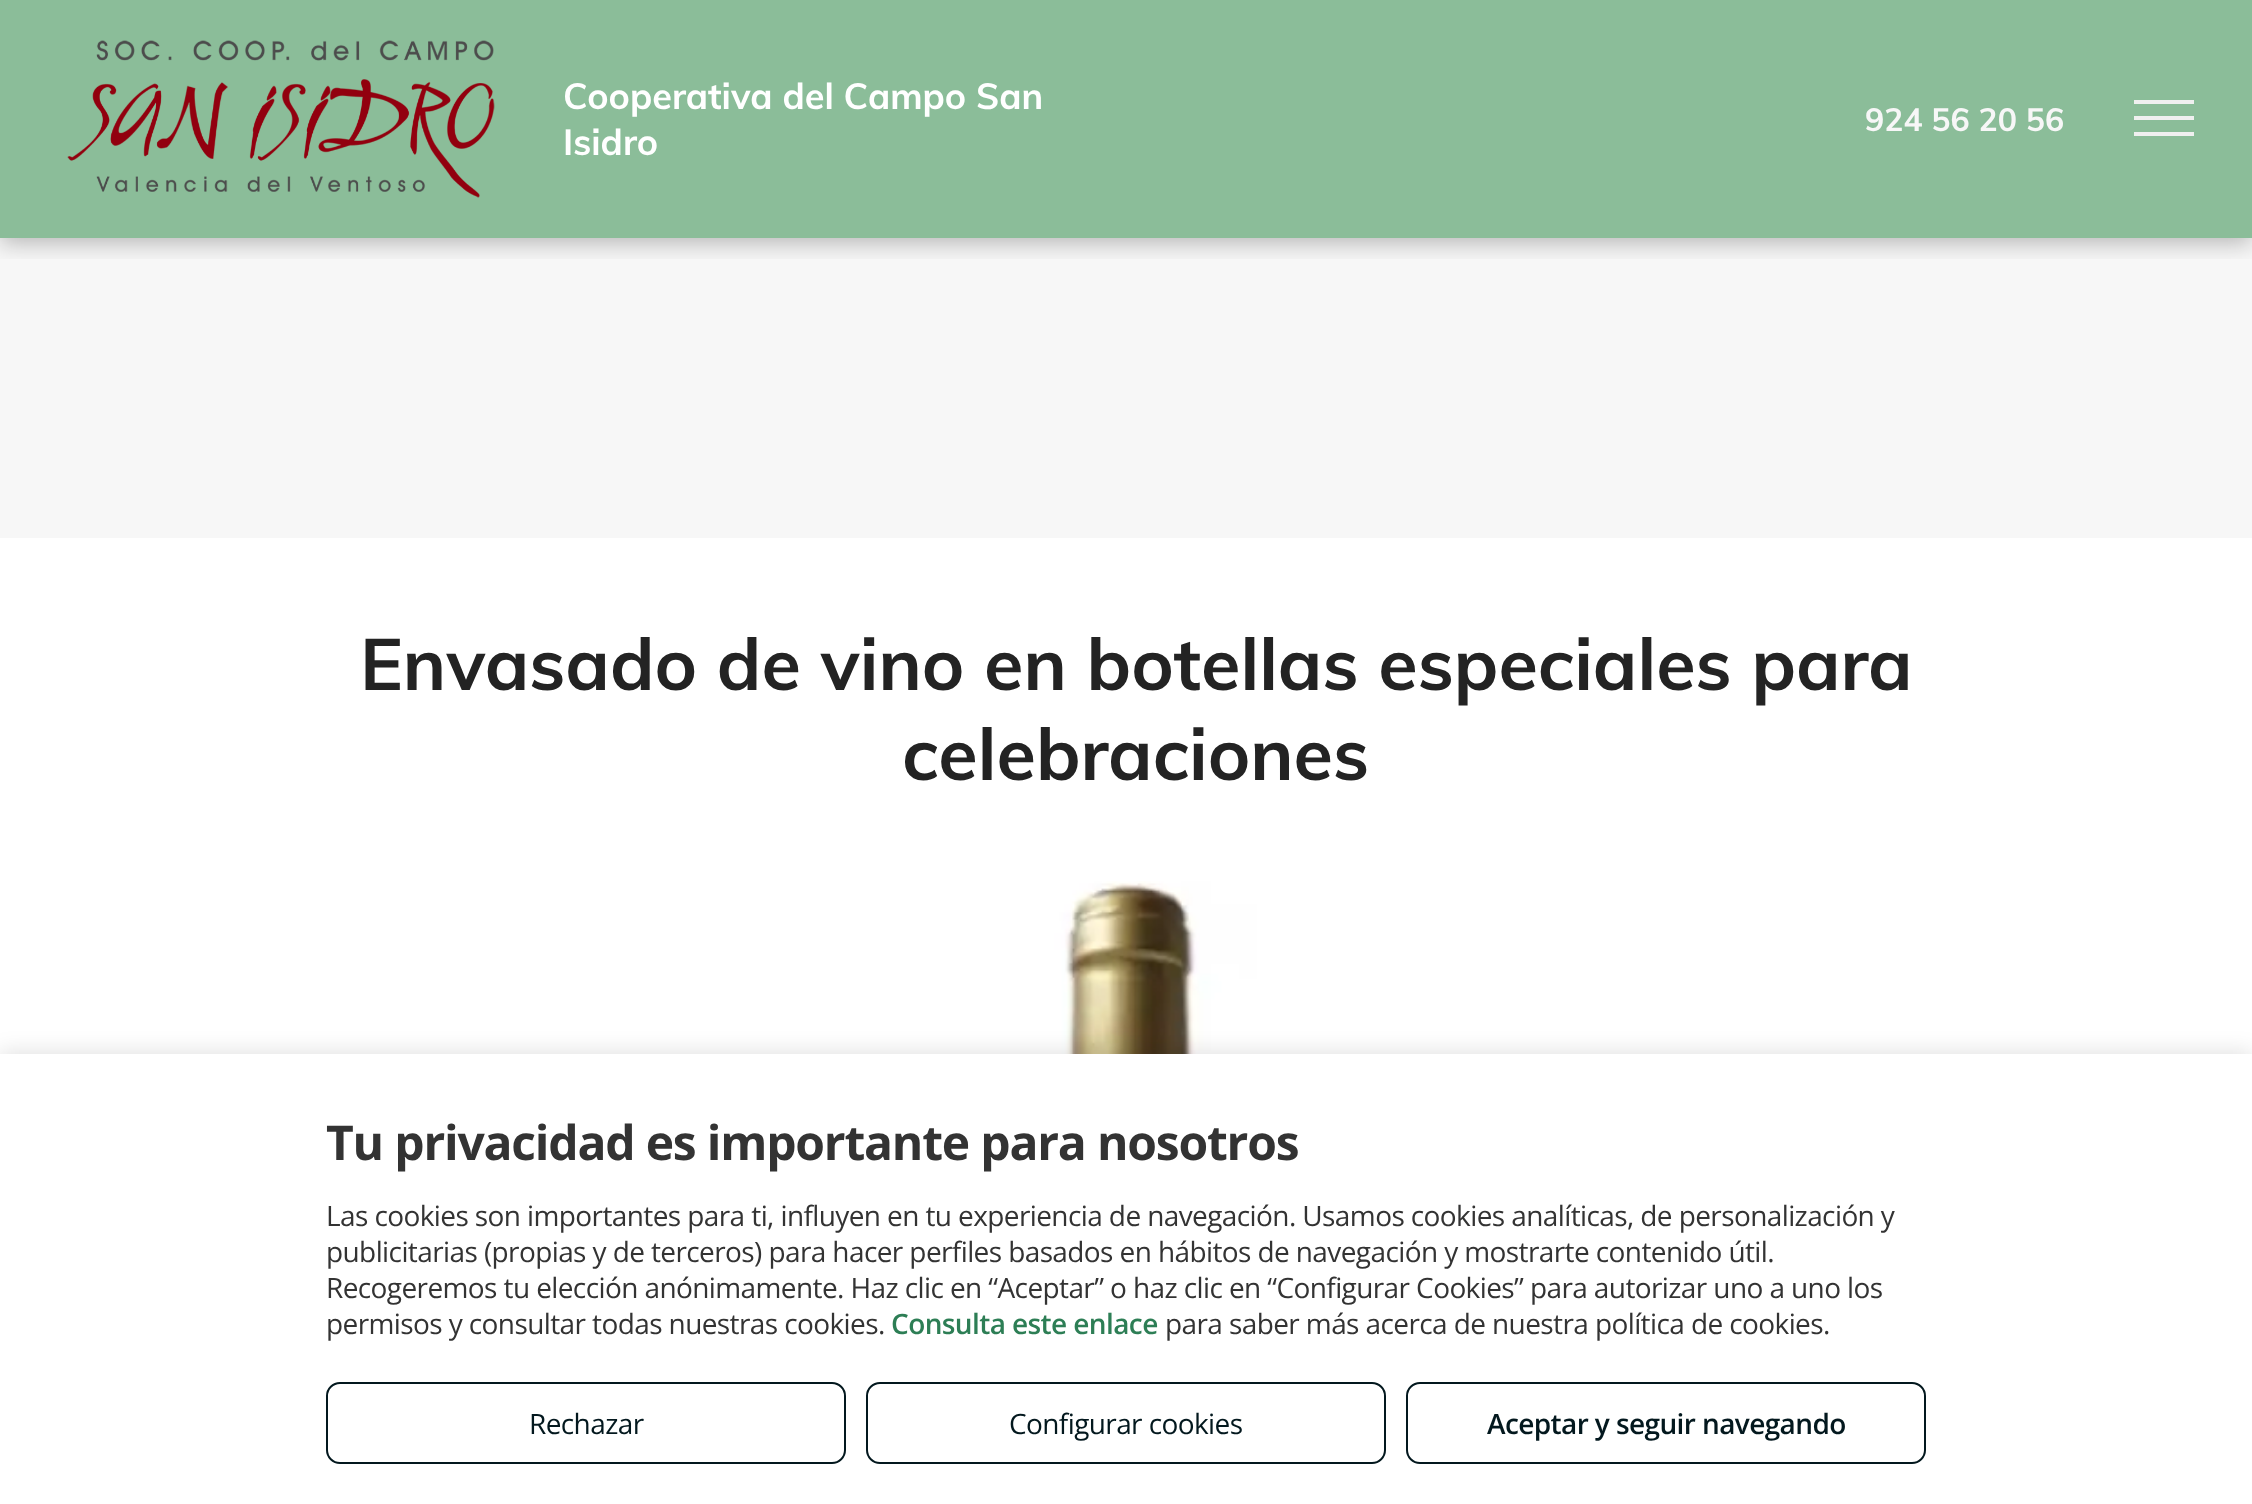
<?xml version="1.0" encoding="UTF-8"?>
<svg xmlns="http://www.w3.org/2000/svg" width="2252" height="1504">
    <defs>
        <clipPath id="clip1"><rect x="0" y="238" width="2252" height="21"/></clipPath>
        <filter id="blur1" x="-50%" y="-200%" width="200%" height="500%"><feGaussianBlur stdDeviation="11"/></filter>
        <filter id="blur2" x="-50%" y="-200%" width="200%" height="500%"><feGaussianBlur stdDeviation="10"/></filter>
    </defs>
    <rect width="100%" height="100%" fill="#FFFFFF"/>
    <rect x="0" y="0" width="2252" height="238" fill="#8BBD99"/>
    <rect x="0" y="238" width="2252" height="300" fill="#F7F7F7"/>
    <g clip-path="url(#clip1)">
        <rect x="0" y="6" width="2252" height="238" fill="#000000" fill-opacity="0.25" filter="url(#blur1)"/>
    </g>
    <image x="67" y="40" width="428" height="158" href="img_01.png"/>
    <text font-family="Muli" font-size="36" font-weight="700" fill="#FFFFFF">
        <tspan x="563" y="109">Cooperativa del Campo San</tspan>
        <tspan x="563" y="155">Isidro</tspan>
    </text>
    <text x="1865" y="131" font-family="Muli" font-size="32" font-weight="700" fill="#F7F7F7">924 56 20 56</text>
    <rect x="2134" y="100" width="60" height="4" fill="#F0F0F0"/>
    <rect x="2134" y="116" width="60" height="4" fill="#F0F0F0"/>
    <rect x="2134" y="132" width="60" height="4" fill="#F0F0F0"/>
    <text x="360" y="690" font-family="Muli" font-size="72" font-weight="700" fill="#232323">Envasado de vino en botellas especiales para</text>
    <text x="902" y="780" font-family="Muli" font-size="72" font-weight="700" fill="#232323">celebraciones</text>
    <image x="1004" y="881" width="253" height="173" href="img_02.png"/>
    <rect x="0" y="1050" width="2252" height="450" fill="#000000" fill-opacity="0.1" filter="url(#blur2)"/>
    <rect x="0" y="1054" width="2252" height="450" fill="#FFFFFF"/>
    <text x="326" y="1160" font-family="Open Sans" font-size="48" font-weight="700" letter-spacing="-1.2" fill="#333333">Tu privacidad es importante para nosotros</text>
    <text font-family="Open Sans" font-size="28" letter-spacing="-0.6" fill="#333333">
        <tspan x="326" y="1226">Las cookies son importantes para ti, influyen en tu experiencia de navegación. Usamos cookies analíticas, de personalización y</tspan>
        <tspan x="326" y="1262">publicitarias (propias y de terceros) para hacer perfiles basados en hábitos de navegación y mostrarte contenido útil.</tspan>
        <tspan x="326" y="1298">Recogeremos tu elección anónimamente. Haz clic en “Aceptar” o haz clic en “Configurar Cookies” para autorizar uno a uno los</tspan>
        <tspan x="326" y="1334">permisos y consultar todas nuestras cookies.</tspan>
    </text>
    <text x="891" y="1334" font-family="Open Sans" font-size="28" font-weight="600" letter-spacing="-0.6" fill="#2D7E55">Consulta este enlace</text>
    <text x="1165" y="1334" font-family="Open Sans" font-size="28" letter-spacing="-0.6" fill="#333333">para saber más acerca de nuestra política de cookies.</text>
    <rect x="327" y="1383" width="518" height="80" rx="13" fill="none" stroke="#03181E" stroke-width="2"/>
    <text x="529" y="1434" font-family="Open Sans" font-size="28" letter-spacing="-0.6" fill="#03181E">Rechazar</text>
    <rect x="867" y="1383" width="518" height="80" rx="13" fill="none" stroke="#03181E" stroke-width="2"/>
    <text x="1009" y="1434" font-family="Open Sans" font-size="28" letter-spacing="-0.6" fill="#03181E">Configurar cookies</text>
    <rect x="1407" y="1383" width="518" height="80" rx="13" fill="none" stroke="#03181E" stroke-width="2"/>
    <text x="1487" y="1434" font-family="Open Sans" font-size="28" font-weight="600" letter-spacing="-0.6" fill="#03181E">Aceptar y seguir navegando</text>
</svg>
